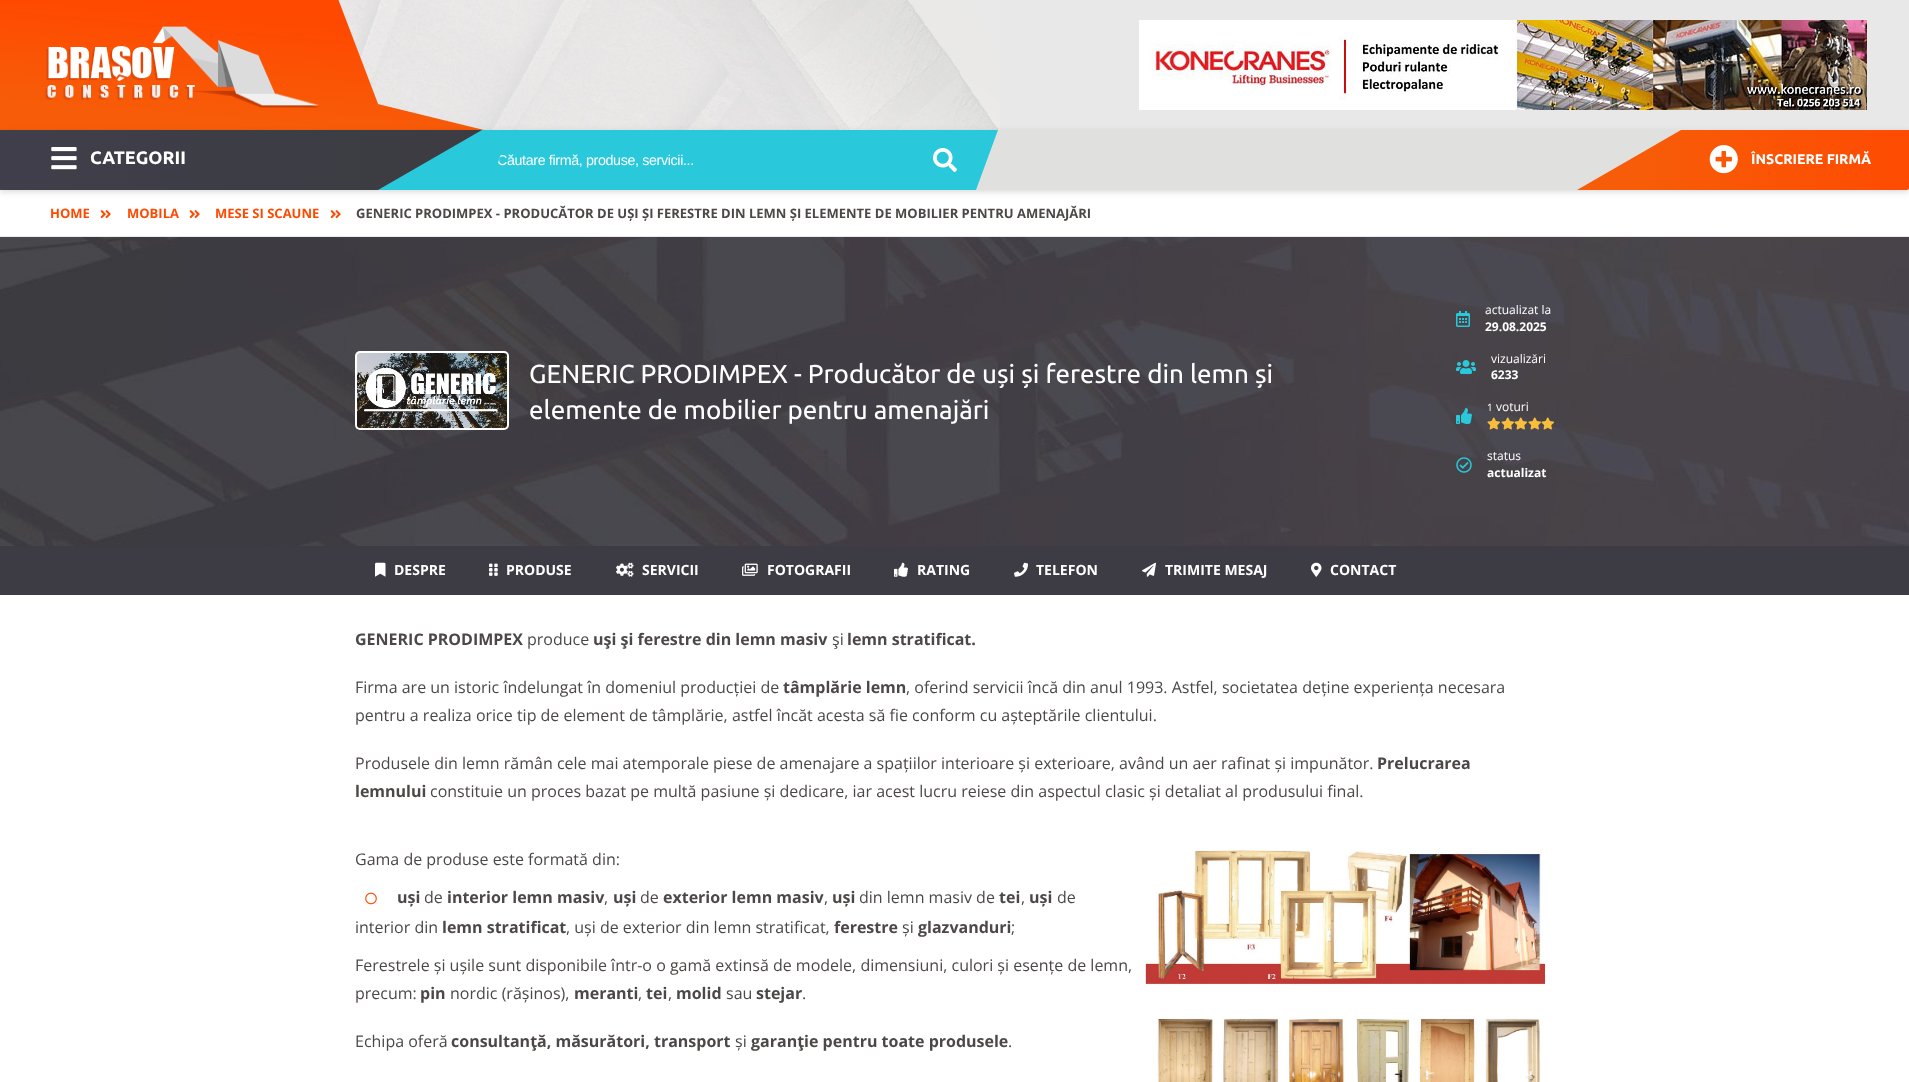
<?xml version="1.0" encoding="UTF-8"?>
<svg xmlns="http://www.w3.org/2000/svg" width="1909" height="1082">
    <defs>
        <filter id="blur1" x="-50%" y="-200%" width="200%" height="500%"><feGaussianBlur stdDeviation="3"/></filter>
        <linearGradient id="g1" gradientUnits="userSpaceOnUse" x1="-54" y1="160" x2="430" y2="160"><stop offset="0" stop-color="#403F4C"/><stop offset="1" stop-color="#3C3C42"/></linearGradient>
        <clipPath id="clip1"><path d="M 501.5 152.5 H 986.5 L 981.5 167.5 H 496.5 Z"/></clipPath>
        <linearGradient id="g2" gradientUnits="userSpaceOnUse" x1="1629" y1="160" x2="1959" y2="160"><stop offset="0" stop-color="#F75D08"/><stop offset="1" stop-color="#FF4800"/></linearGradient>
    </defs>
    <rect width="100%" height="100%" fill="#FFFFFF"/>
    <rect x="1000" y="0" width="909" height="130" fill="#E8E8E8"/>
    <image x="338" y="0" width="662" height="130" href="img_01.png"/>
    <image x="0" y="0" width="484" height="130" href="img_02.png"/>
    <image x="45" y="26" width="274" height="82" href="img_03.png"/>
    <image x="1139" y="20" width="728" height="90" href="img_04.png"/>
    <rect x="0" y="132" width="1909" height="60" fill="#000000" fill-opacity="0.15" filter="url(#blur1)"/>
    <rect x="976" y="130" width="933" height="60" fill="#E0E0DE"/>
    <path d="M 390 130 H 998 L 976 190 H 368 Z" fill="#29C8DB"/>
    <path d="M -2 130 H 482 L 378 190 H -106 Z" fill="url(#g1)"/>
    <image x="51" y="147" width="26" height="23" href="img_05.png"/>
    <text x="90" y="164" font-family="Ubuntu" font-size="18" font-weight="700" fill="#FFFFFF">CATEGORII</text>
    <g clip-path="url(#clip1)">
        <text x="497" y="165" font-family="Liberation Sans" font-size="14.25" letter-spacing="-0.35" fill="#FFFFFF">Căutare firmă, produse, servicii...</text>
    </g>
    <image x="933" y="148" width="24" height="24" href="img_06.png"/>
    <path d="M 1681 130 H 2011 L 1907 190 H 1577 Z" fill="url(#g2)"/>
    <image x="1709" y="145" width="29" height="29" href="img_07.png"/>
    <text x="1751" y="164" font-family="Ubuntu" font-size="14" font-weight="700" fill="#FFFFFF">ÎNSCRIERE FIRMĂ</text>
    <rect x="0" y="236" width="1909" height="1" fill="#EAEAEA"/>
    <text x="50" y="218" font-family="Open Sans" font-size="13" font-weight="700" fill="#FE4A01">HOME</text>
    <image x="100" y="210" width="11" height="9" href="img_08.png"/>
    <text x="127" y="218" font-family="Open Sans" font-size="13" font-weight="700" fill="#FE4A01">MOBILA</text>
    <image x="189" y="210" width="11" height="9" href="img_08.png"/>
    <text x="215" y="218" font-family="Open Sans" font-size="13" font-weight="700" fill="#FE4A01">MESE SI SCAUNE</text>
    <image x="330" y="210" width="11" height="9" href="img_08.png"/>
    <text x="356" y="218" font-family="Open Sans" font-size="13" font-weight="700" fill="#4C4847">GENERIC PRODIMPEX - PRODUCĂTOR DE UȘI ȘI FERESTRE DIN LEMN ȘI ELEMENTE DE MOBILIER PENTRU AMENAJĂRI</text>
    <image x="0" y="237" width="1909" height="309" href="img_09.png"/>
    <rect x="355" y="351" width="154" height="79" rx="5" fill="#FFFFFF"/>
    <image x="357" y="353" width="150" height="75" href="img_10.png"/>
    <text font-family="Ubuntu" font-size="26" fill="#FFFFFF">
        <tspan x="529" y="383">GENERIC PRODIMPEX - Producător de uși și ferestre din lemn și</tspan>
        <tspan x="529" y="419">elemente de mobilier pentru amenajări</tspan>
    </text>
    <image x="1456" y="311" width="14" height="16" href="img_11.png"/>
    <text x="1485" y="314" font-family="Open Sans" font-size="12" fill="#FFFFFF">actualizat la</text>
    <text x="1485" y="331" font-family="Open Sans" font-size="12" font-weight="700" fill="#FFFFFF">29.08.2025</text>
    <image x="1456" y="360" width="20" height="14" href="img_12.png"/>
    <text x="1491" y="363" font-family="Open Sans" font-size="12" fill="#FFFFFF">vizualizări</text>
    <text x="1491" y="379" font-family="Open Sans" font-size="12" font-weight="700" fill="#FFFFFF">6233</text>
    <text x="1487" y="411" font-family="Open Sans" font-size="10" fill="#FFFFFF">1</text>
    <text x="1496" y="411" font-family="Open Sans" font-size="12" fill="#FFFFFF">voturi</text>
    <image x="1487" y="417" width="13" height="13" href="img_13.png"/>
    <image x="1501" y="417" width="13" height="13" href="img_14.png"/>
    <image x="1514" y="417" width="13" height="13" href="img_15.png"/>
    <image x="1528" y="417" width="13" height="13" href="img_16.png"/>
    <image x="1541" y="417" width="13" height="13" href="img_17.png"/>
    <image x="1456" y="408" width="16" height="16" href="img_18.png"/>
    <image x="1456" y="457" width="16" height="16" href="img_19.png"/>
    <text x="1487" y="460" font-family="Open Sans" font-size="12" fill="#FFFFFF">status</text>
    <text x="1487" y="477" font-family="Open Sans" font-size="12" font-weight="700" fill="#FFFFFF">actualizat</text>
    <rect x="0" y="546" width="1909" height="49" fill="#3D3C44"/>
    <image x="375" y="562" width="11" height="15" href="img_20.png"/>
    <text x="394" y="575" font-family="Open Sans" font-size="14" font-weight="700" fill="#FFFFFF">DESPRE</text>
    <image x="489" y="563" width="9" height="13" href="img_21.png"/>
    <text x="506" y="575" font-family="Open Sans" font-size="14" font-weight="700" fill="#FFFFFF">PRODUSE</text>
    <image x="616" y="562" width="18" height="15" href="img_22.png"/>
    <text x="642" y="575" font-family="Open Sans" font-size="14" font-weight="700" fill="#FFFFFF">SERVICII</text>
    <image x="742" y="563" width="16" height="13" href="img_23.png"/>
    <text x="767" y="575" font-family="Open Sans" font-size="14" font-weight="700" fill="#FFFFFF">FOTOGRAFII</text>
    <image x="894" y="562" width="14" height="15" href="img_24.png"/>
    <text x="917" y="575" font-family="Open Sans" font-size="14" font-weight="700" fill="#FFFFFF">RATING</text>
    <image x="1014" y="562" width="14" height="15" href="img_25.png"/>
    <text x="1036" y="575" font-family="Open Sans" font-size="14" font-weight="700" fill="#FFFFFF">TELEFON</text>
    <image x="1142" y="562" width="14" height="15" href="img_26.png"/>
    <text x="1165" y="575" font-family="Open Sans" font-size="14" font-weight="700" fill="#FFFFFF">TRIMITE MESAJ</text>
    <image x="1311" y="562" width="11" height="15" href="img_27.png"/>
    <text x="1330" y="575" font-family="Open Sans" font-size="14" font-weight="700" fill="#FFFFFF">CONTACT</text>
    <text x="355" y="645" font-family="Open Sans" font-size="16" font-weight="700" fill="#4C4847">GENERIC PRODIMPEX</text>
    <text x="527" y="645" font-family="Open Sans" font-size="16" fill="#4C4847">produce</text>
    <text x="593" y="645" font-family="Open Sans" font-size="16" font-weight="700" fill="#4C4847">uşi şi ferestre din lemn masiv</text>
    <text x="832" y="645" font-family="Open Sans" font-size="16" fill="#4C4847">şi</text>
    <text x="847" y="645" font-family="Open Sans" font-size="16" font-weight="700" fill="#4C4847">lemn stratificat.</text>
    <text x="355" y="693" font-family="Open Sans" font-size="16" fill="#4C4847">Firma are un istoric îndelungat în domeniul producției de</text>
    <text x="783" y="693" font-family="Open Sans" font-size="16" font-weight="700" fill="#4C4847">tâmplărie lemn</text>
    <text x="906" y="693" font-family="Open Sans" font-size="16" fill="#4C4847">, oferind servicii încă din anul 1993. Astfel, societatea deține experiența necesara</text>
    <text x="355" y="721" font-family="Open Sans" font-size="16" fill="#4C4847">pentru a realiza orice tip de element de tâmplărie, astfel încăt acesta să fie conform cu așteptările clientului.</text>
    <text x="355" y="769" font-family="Open Sans" font-size="16" fill="#4C4847">Produsele din lemn rămân cele mai atemporale piese de amenajare a spațiilor interioare și exterioare, având un aer rafinat și impunător.</text>
    <text x="1377" y="769" font-family="Open Sans" font-size="16" font-weight="700" fill="#4C4847">Prelucrarea</text>
    <text x="355" y="797" font-family="Open Sans" font-size="16" font-weight="700" fill="#4C4847">lemnului</text>
    <text x="430" y="797" font-family="Open Sans" font-size="16" fill="#4C4847">constituie un proces bazat pe multă pasiune și dedicare, iar acest lucru reiese din aspectul clasic și detaliat al produsului final.</text>
    <text x="355" y="865" font-family="Open Sans" font-size="16" fill="#4C4847">Gama de produse este formată din:</text>
    <image x="1145" y="850" width="400" height="232" href="img_28.png"/>
    <image x="365" y="892" width="12" height="13" href="img_29.png"/>
    <text x="397" y="903" font-family="Open Sans" font-size="16" font-weight="700" fill="#4C4847">uși</text>
    <text x="424" y="903" font-family="Open Sans" font-size="16" fill="#4C4847">de</text>
    <text x="447" y="903" font-family="Open Sans" font-size="16" font-weight="700" fill="#4C4847">interior lemn masiv</text>
    <text x="604" y="903" font-family="Open Sans" font-size="16" fill="#4C4847">,</text>
    <text x="613" y="903" font-family="Open Sans" font-size="16" font-weight="700" fill="#4C4847">uși</text>
    <text x="640" y="903" font-family="Open Sans" font-size="16" fill="#4C4847">de</text>
    <text x="663" y="903" font-family="Open Sans" font-size="16" font-weight="700" fill="#4C4847">exterior lemn masiv</text>
    <text x="824" y="903" font-family="Open Sans" font-size="16" fill="#4C4847">,</text>
    <text x="832" y="903" font-family="Open Sans" font-size="16" font-weight="700" fill="#4C4847">uși</text>
    <text x="859" y="903" font-family="Open Sans" font-size="16" fill="#4C4847">din lemn masiv de</text>
    <text x="999" y="903" font-family="Open Sans" font-size="16" font-weight="700" fill="#4C4847">tei</text>
    <text x="1021" y="903" font-family="Open Sans" font-size="16" fill="#4C4847">,</text>
    <text x="1029" y="903" font-family="Open Sans" font-size="16" font-weight="700" fill="#4C4847">uși</text>
    <text x="1057" y="903" font-family="Open Sans" font-size="16" fill="#4C4847">de</text>
    <text x="355" y="933" font-family="Open Sans" font-size="16" fill="#4C4847">interior din</text>
    <text x="442" y="933" font-family="Open Sans" font-size="16" font-weight="700" fill="#4C4847">lemn stratificat</text>
    <text x="566" y="933" font-family="Open Sans" font-size="16" fill="#4C4847">, uși de exterior din lemn stratificat,</text>
    <text x="834" y="933" font-family="Open Sans" font-size="16" font-weight="700" fill="#4C4847">ferestre</text>
    <text x="902" y="933" font-family="Open Sans" font-size="16" fill="#4C4847">și</text>
    <text x="918" y="933" font-family="Open Sans" font-size="16" font-weight="700" fill="#4C4847">glazvanduri</text>
    <text x="1011" y="933" font-family="Open Sans" font-size="16" fill="#4C4847">;</text>
    <text font-family="Open Sans" font-size="16" fill="#4C4847">
        <tspan x="355" y="971">Ferestrele și ușile sunt disponibile într-o o gamă extinsă de modele, dimensiuni, culori și esențe de lemn,</tspan>
        <tspan x="355" y="999">precum:</tspan>
    </text>
    <text x="420" y="999" font-family="Open Sans" font-size="16" font-weight="700" fill="#4C4847">pin</text>
    <text x="450" y="999" font-family="Open Sans" font-size="16" fill="#4C4847">nordic (rășinos),</text>
    <text x="574" y="999" font-family="Open Sans" font-size="16" font-weight="700" fill="#4C4847">meranti</text>
    <text x="638" y="999" font-family="Open Sans" font-size="16" fill="#4C4847">,</text>
    <text x="646" y="999" font-family="Open Sans" font-size="16" font-weight="700" fill="#4C4847">tei</text>
    <text x="668" y="999" font-family="Open Sans" font-size="16" fill="#4C4847">,</text>
    <text x="676" y="999" font-family="Open Sans" font-size="16" font-weight="700" fill="#4C4847">molid</text>
    <text x="726" y="999" font-family="Open Sans" font-size="16" fill="#4C4847">sau</text>
    <text x="756" y="999" font-family="Open Sans" font-size="16" font-weight="700" fill="#4C4847">stejar</text>
    <text x="802" y="999" font-family="Open Sans" font-size="16" fill="#4C4847">.</text>
    <text x="355" y="1047" font-family="Open Sans" font-size="16" fill="#4C4847">Echipa oferă</text>
    <text x="451" y="1047" font-family="Open Sans" font-size="16" font-weight="700" fill="#4C4847">consultanţă, măsurători, transport</text>
    <text x="735" y="1047" font-family="Open Sans" font-size="16" fill="#4C4847">și</text>
    <text x="751" y="1047" font-family="Open Sans" font-size="16" font-weight="700" fill="#4C4847">garanţie pentru toate produsele</text>
    <text x="1008" y="1047" font-family="Open Sans" font-size="16" fill="#4C4847">.</text>
</svg>
